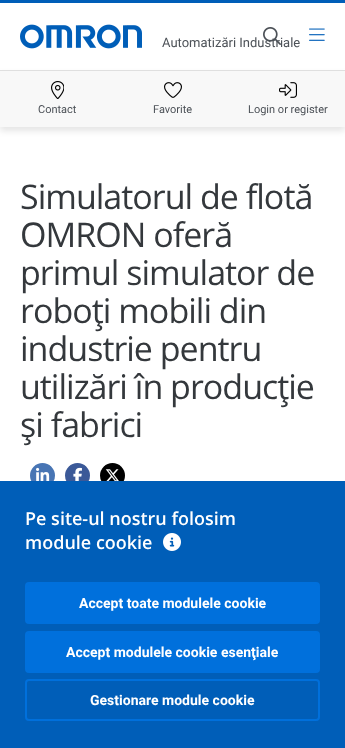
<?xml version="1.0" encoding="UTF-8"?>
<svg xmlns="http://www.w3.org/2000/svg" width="345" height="748">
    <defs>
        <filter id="blur1" x="-50%" y="-200%" width="200%" height="500%"><feGaussianBlur stdDeviation="3"/></filter>
    </defs>
    <rect width="100%" height="100%" fill="#FFFFFF"/>
    <rect x="0" y="0" width="345" height="3" fill="#005EB8"/>
    <text x="162" y="47" font-family="Roboto" font-size="13" fill="#4C5157">Automatizări Industriale</text>
    <image x="263" y="27" width="18" height="18" href="img_01.png"/>
    <image x="309" y="28" width="16" height="13" href="img_02.png"/>
    <image x="20" y="24" width="122" height="25" href="img_03.png"/>
    <rect x="0" y="74" width="345" height="57" fill="#000000" fill-opacity="0.1" filter="url(#blur1)"/>
    <rect x="0" y="71" width="345" height="56" fill="#F8F8F8"/>
    <rect x="0" y="70" width="345" height="1" fill="#DFDFDF"/>
    <image x="51" y="81" width="13" height="18" href="img_04.png"/>
    <text x="38" y="113" font-family="Roboto" font-size="11" fill="#4C5157">Contact</text>
    <image x="164" y="82" width="18" height="16" href="img_05.png"/>
    <text x="153" y="113" font-family="Roboto" font-size="11" fill="#4C5157">Favorite</text>
    <image x="279" y="82" width="18" height="16" href="img_06.png"/>
    <text x="248" y="113" font-family="Roboto" font-size="11" fill="#4C5157">Login or register</text>
    <text font-family="Open Sans" font-size="34" letter-spacing="-1" fill="#34383C">
        <tspan x="20" y="209">Simulatorul de flotă</tspan>
        <tspan x="20" y="247">OMRON oferă</tspan>
        <tspan x="20" y="285">primul simulator de</tspan>
        <tspan x="20" y="323">roboţi mobili din</tspan>
        <tspan x="20" y="361">industrie pentru</tspan>
        <tspan x="20" y="399">utilizări în producţie</tspan>
        <tspan x="20" y="437">şi fabrici</tspan>
    </text>
    <circle cx="42.5" cy="475.5" r="12.5" fill="#4875B4"/>
    <image x="36" y="467" width="14" height="14" href="img_07.png"/>
    <circle cx="77.5" cy="475.5" r="12.5" fill="#3B5998"/>
    <image x="73" y="467" width="9" height="14" href="img_08.png"/>
    <circle cx="112.5" cy="475.5" r="12.5" fill="#000000"/>
    <image x="105" y="469" width="14" height="12" href="img_09.png"/>
    <rect x="0" y="481" width="345" height="267" fill="#005EB8"/>
    <text font-family="Open Sans" font-size="18" font-weight="600" fill="#FFFFFF">
        <tspan x="25" y="525">Pe site-ul nostru folosim</tspan>
        <tspan x="25" y="549">module cookie</tspan>
    </text>
    <image x="163" y="533" width="18" height="18" href="img_10.png"/>
    <rect x="26" y="583" width="293" height="40" rx="3" fill="#0070DC" stroke="#0070DC" stroke-width="2"/>
    <text x="79" y="608" font-family="Roboto" font-size="14" font-weight="700" fill="#FFFFFF">Accept toate modulele cookie</text>
    <rect x="26" y="632" width="293" height="40" rx="3" fill="#0070DC" stroke="#0070DC" stroke-width="2"/>
    <text x="66" y="657" font-family="Roboto" font-size="14" font-weight="700" fill="#FFFFFF">Accept modulele cookie esenţiale</text>
    <rect x="26" y="680" width="293" height="40" rx="3" fill="none" stroke="#0070DC" stroke-width="2"/>
    <text x="90" y="705" font-family="Roboto" font-size="14" font-weight="700" fill="#FFFFFF">Gestionare module cookie</text>
</svg>
